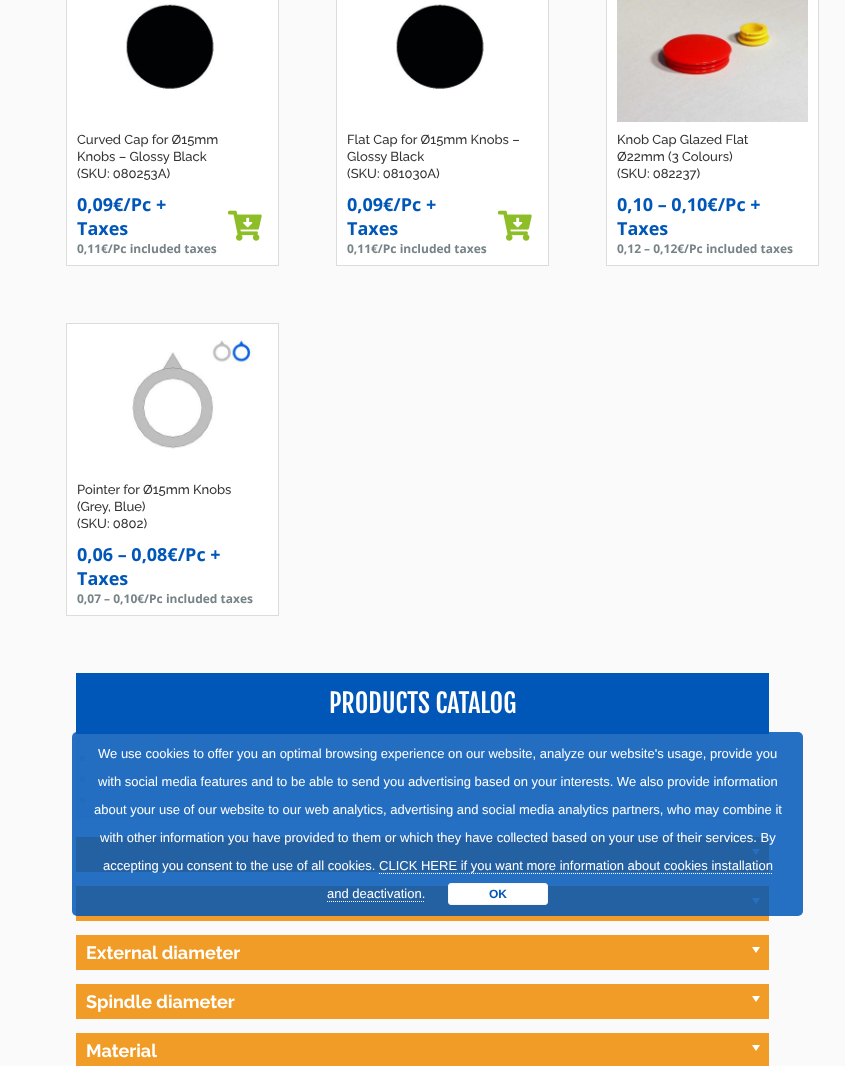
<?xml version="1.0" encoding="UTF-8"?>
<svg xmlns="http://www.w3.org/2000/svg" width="845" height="1066">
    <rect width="100%" height="100%" fill="#FAFAFA"/>
    <rect x="66.5" y="-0.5" width="212" height="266" fill="#FFFFFF" stroke="#DCDCDC"/>
    <image x="126" y="3" width="88" height="86" href="img_01.png"/>
    <text font-family="Raleway" font-size="13" font-weight="500" fill="#333333">
        <tspan x="77" y="144">Curved Cap for Ø15mm</tspan>
        <tspan x="77" y="161">Knobs – Glossy Black</tspan>
        <tspan x="77" y="178">(SKU: 080253A)</tspan>
    </text>
    <text font-family="Open Sans" font-size="18" font-weight="700" fill="#0057B8">
        <tspan x="77" y="211">0,09€/Pc +</tspan>
        <tspan x="77" y="235">Taxes</tspan>
    </text>
    <text x="77" y="253" font-family="Open Sans" font-size="12" font-weight="700" fill="#768387">0,11€/Pc included taxes</text>
    <image x="228" y="210" width="34" height="31" href="img_02.png"/>
    <rect x="336.5" y="-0.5" width="212" height="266" fill="#FFFFFF" stroke="#DCDCDC"/>
    <image x="396" y="3" width="88" height="86" href="img_01.png"/>
    <text font-family="Raleway" font-size="13" font-weight="500" fill="#333333">
        <tspan x="347" y="144">Flat Cap for Ø15mm Knobs –</tspan>
        <tspan x="347" y="161">Glossy Black</tspan>
        <tspan x="347" y="178">(SKU: 081030A)</tspan>
    </text>
    <text font-family="Open Sans" font-size="18" font-weight="700" fill="#0057B8">
        <tspan x="347" y="211">0,09€/Pc +</tspan>
        <tspan x="347" y="235">Taxes</tspan>
    </text>
    <text x="347" y="253" font-family="Open Sans" font-size="12" font-weight="700" fill="#768387">0,11€/Pc included taxes</text>
    <image x="498" y="210" width="34" height="31" href="img_02.png"/>
    <rect x="606.5" y="-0.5" width="212" height="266" fill="#FFFFFF" stroke="#DCDCDC"/>
    <image x="617" y="0" width="191" height="122" href="img_03.png"/>
    <text font-family="Raleway" font-size="13" font-weight="500" fill="#333333">
        <tspan x="617" y="144">Knob Cap Glazed Flat</tspan>
        <tspan x="617" y="161">Ø22mm (3 Colours)</tspan>
        <tspan x="617" y="178">(SKU: 082237)</tspan>
    </text>
    <text font-family="Open Sans" font-size="18" font-weight="700" fill="#0057B8">
        <tspan x="617" y="211">0,10 – 0,10€/Pc +</tspan>
        <tspan x="617" y="235">Taxes</tspan>
    </text>
    <text x="617" y="253" font-family="Open Sans" font-size="12" font-weight="700" fill="#768387">0,12 – 0,12€/Pc included taxes</text>
    <rect x="66.5" y="323.5" width="212" height="292" fill="#FFFFFF" stroke="#DCDCDC"/>
    <image x="132" y="339" width="121" height="110" href="img_04.png"/>
    <text font-family="Raleway" font-size="13" font-weight="500" fill="#333333">
        <tspan x="77" y="494">Pointer for Ø15mm Knobs</tspan>
        <tspan x="77" y="511">(Grey, Blue)</tspan>
        <tspan x="77" y="528">(SKU: 0802)</tspan>
    </text>
    <text font-family="Open Sans" font-size="18" font-weight="700" fill="#0057B8">
        <tspan x="77" y="561">0,06 – 0,08€/Pc +</tspan>
        <tspan x="77" y="585">Taxes</tspan>
    </text>
    <text x="77" y="603" font-family="Open Sans" font-size="12" font-weight="700" fill="#768387">0,07 – 0,10€/Pc included taxes</text>
    <rect x="76" y="673" width="693" height="61" fill="#0057B8"/>
    <text x="329" y="713" font-family="Fjalla One" font-size="26" fill="#FFFFFF">PRODUCTS CATALOG</text>
    <rect x="76" y="734" width="693" height="85" fill="#EFEFEF"/>
    <rect x="80" y="756" width="5" height="5" fill="#DADADA"/>
    <rect x="80" y="777" width="5" height="5" fill="#DADADA"/>
    <rect x="80" y="798" width="5" height="5" fill="#DADADA"/>
    <rect x="76" y="837" width="693" height="35" fill="#F19C27"/>
    <rect x="76" y="886" width="693" height="35" fill="#F19C27"/>
    <path d="M 760 849 L 756 855 L 752 849 Z M 760 898 L 756 904 L 752 898 Z" fill="#FFFFFF"/>
    <rect x="76" y="935" width="693" height="35" fill="#F19C27"/>
    <text x="86" y="959" font-family="Raleway" font-size="18" font-weight="700" fill="#FFFFFF">External diameter</text>
    <rect x="76" y="984" width="693" height="35" fill="#F19C27"/>
    <path d="M 760 947 L 756 953 L 752 947 Z M 760 996 L 756 1002 L 752 996 Z" fill="#FFFFFF"/>
    <text x="86" y="1008" font-family="Raleway" font-size="18" font-weight="700" fill="#FFFFFF">Spindle diameter</text>
    <rect x="76" y="1033" width="693" height="33" fill="#F19C27"/>
    <text x="86" y="1057" font-family="Raleway" font-size="18" font-weight="700" fill="#FFFFFF">Material</text>
    <path d="M 760 1045 L 756 1051 L 752 1045 Z" fill="#FFFFFF"/>
    <rect x="72" y="732" width="731" height="184" rx="5" fill="#0057B8" fill-opacity="0.85"/>
    <text x="98" y="758" font-family="Liberation Sans" font-size="13" fill="#FFFFFF">We use cookies to offer you an optimal browsing experience on our website, analyze our website's usage, provide you</text>
    <text x="98" y="786" font-family="Liberation Sans" font-size="13" fill="#FFFFFF">with social media features and to be able to send you advertising based on your interests. We also provide information</text>
    <text x="94" y="814" font-family="Liberation Sans" font-size="13" fill="#FFFFFF">about your use of our website to our web analytics, advertising and social media analytics partners, who may combine it</text>
    <text x="100" y="842" font-family="Liberation Sans" font-size="13" fill="#FFFFFF">with other information you have provided to them or which they have collected based on your use of their services. By</text>
    <text x="103" y="870" font-family="Liberation Sans" font-size="13" fill="#FFFFFF">accepting you consent to the use of all cookies. CLICK HERE if you want more information about cookies installation</text>
    <text x="327" y="898" font-family="Liberation Sans" font-size="13" fill="#FFFFFF">and deactivation.</text>
    <path d="M 379 873.5 H 772" fill="none" stroke="#FFFFFF" stroke-dasharray="1 1"/>
    <path d="M 327 901.5 H 425" fill="none" stroke="#FFFFFF" stroke-dasharray="1 1"/>
    <rect x="448.5" y="883.5" width="99" height="21" rx="2.5" fill="#FFFFFF" stroke="#F6F6F6"/>
    <text x="489" y="898" font-family="Liberation Sans" font-size="12" font-weight="700" fill="#0057B8">OK</text>
</svg>
